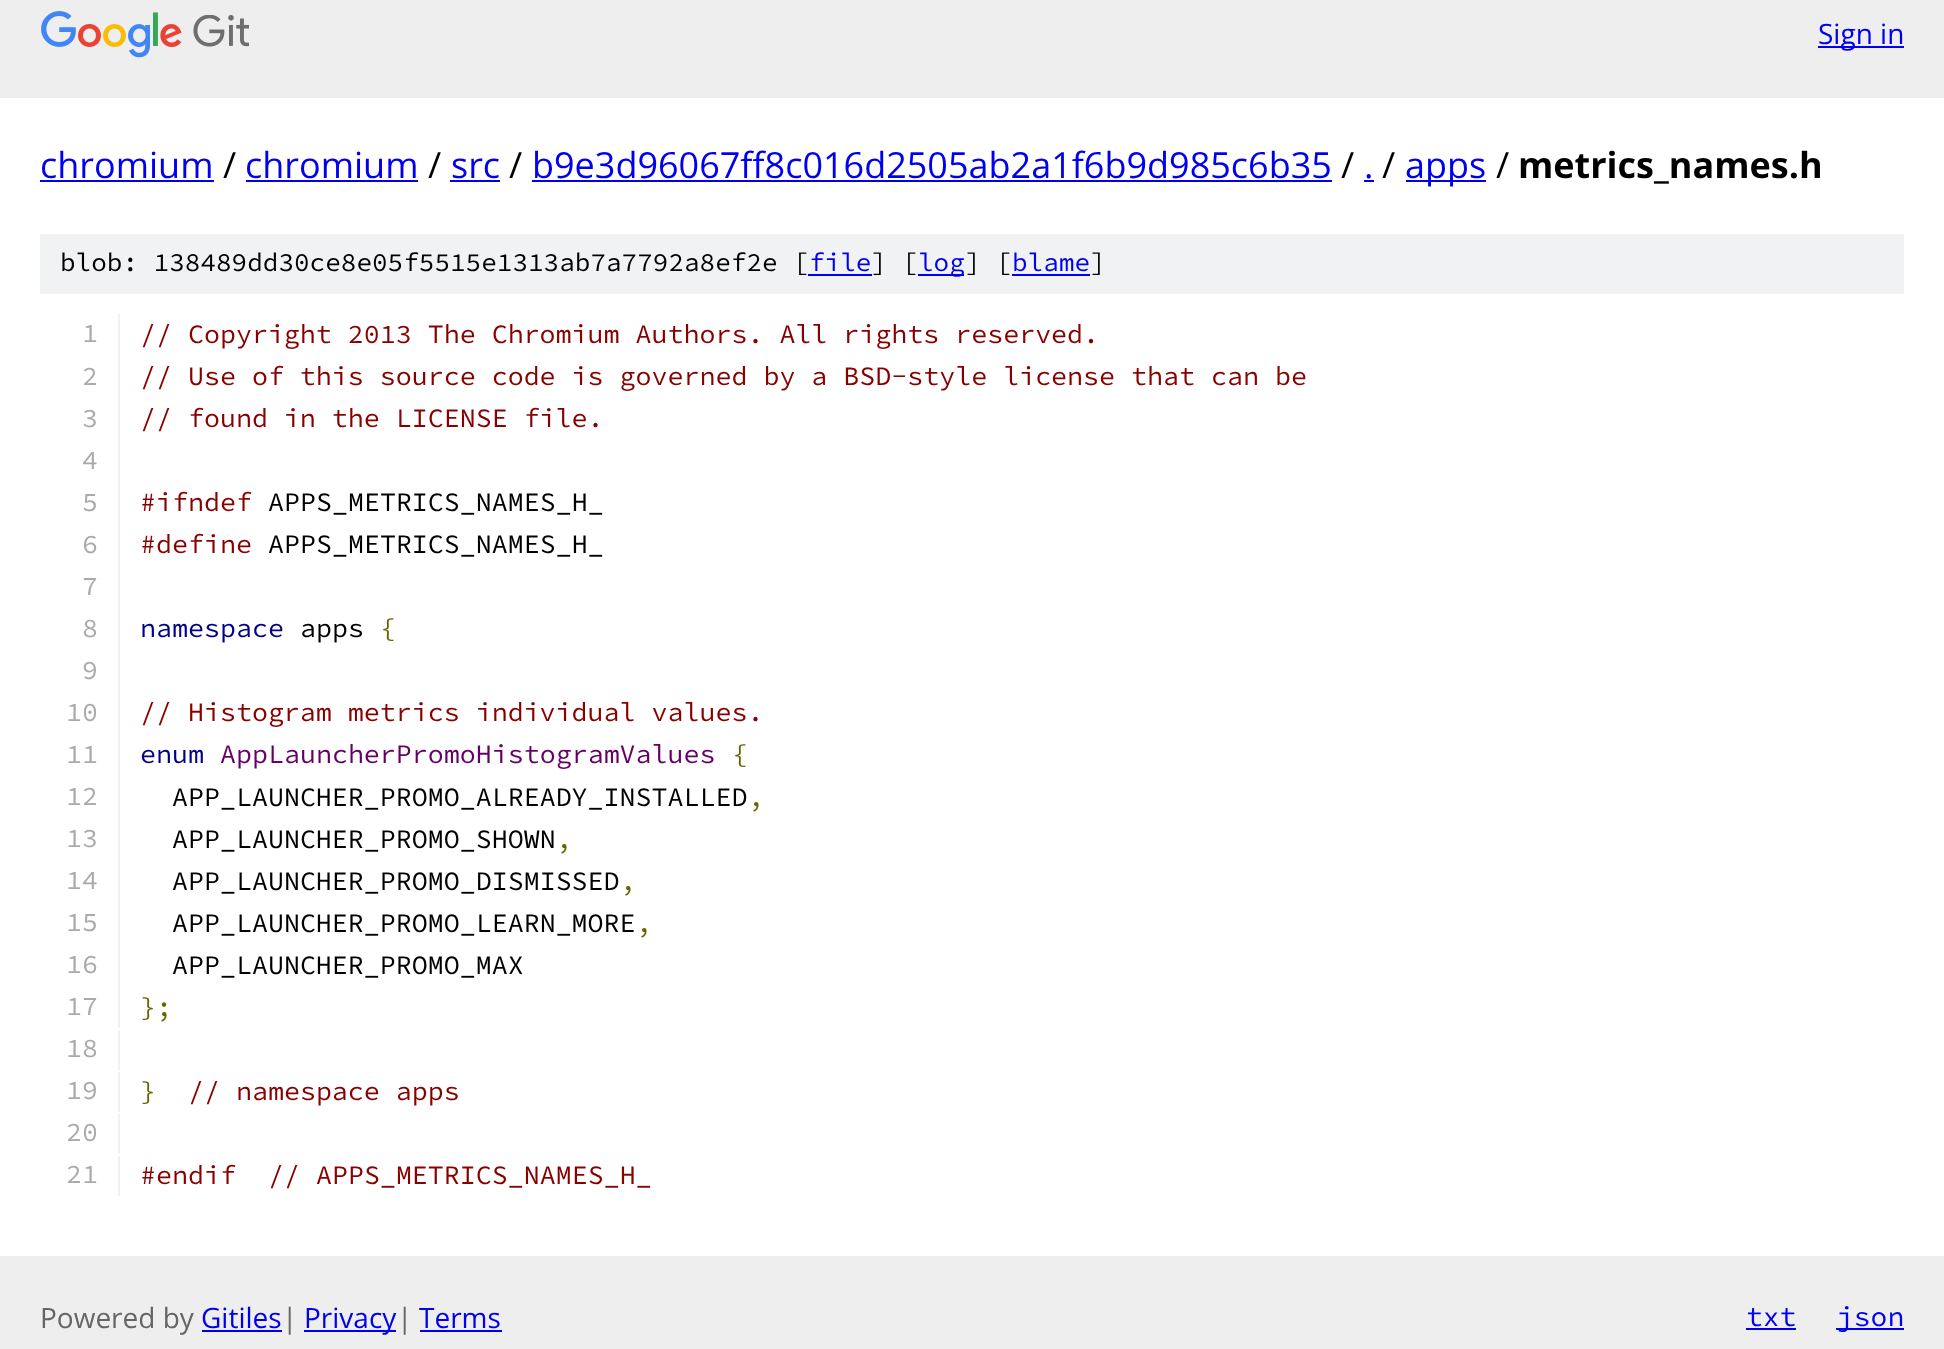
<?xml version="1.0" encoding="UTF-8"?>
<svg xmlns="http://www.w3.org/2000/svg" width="1944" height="1349">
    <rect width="100%" height="100%" fill="#FFFFFF"/>
    <rect x="0" y="0" width="1944" height="98" fill="#EEEEEE"/>
    <image x="41" y="11" width="208" height="47" href="img_01.png"/>
    <rect x="1818" y="46" width="86" height="2" fill="#0000EE"/>
    <text x="1818" y="44" font-family="Open Sans" font-size="28" fill="#0000EE">Sign in</text>
    <text x="40" y="178" font-family="Open Sans" font-size="36" fill="#0000EE">chromium</text>
    <rect x="40" y="180" width="174" height="2" fill="#0000EE"/>
    <text x="223" y="178" font-family="Open Sans" font-size="36" fill="#000000">/</text>
    <text x="245" y="178" font-family="Open Sans" font-size="36" fill="#0000EE">chromium</text>
    <rect x="246" y="180" width="172" height="2" fill="#0000EE"/>
    <text x="428" y="178" font-family="Open Sans" font-size="36" fill="#000000">/</text>
    <text x="451" y="178" font-family="Open Sans" font-size="36" fill="#0000EE">src</text>
    <rect x="450" y="180" width="50" height="2" fill="#0000EE"/>
    <text x="509" y="178" font-family="Open Sans" font-size="36" fill="#000000">/</text>
    <text x="532" y="178" font-family="Open Sans" font-size="36" fill="#0000EE">b9e3d96067ff8c016d2505ab2a1f6b9d985c6b35</text>
    <rect x="532" y="180" width="800" height="2" fill="#0000EE"/>
    <text x="1341" y="178" font-family="Open Sans" font-size="36" fill="#000000">/</text>
    <text x="1364" y="178" font-family="Open Sans" font-size="36" fill="#0000EE">.</text>
    <rect x="1364" y="180" width="10" height="2" fill="#0000EE"/>
    <text x="1382" y="178" font-family="Open Sans" font-size="36" fill="#000000">/</text>
    <rect x="1406" y="180" width="80" height="2" fill="#0000EE"/>
    <text x="1405" y="178" font-family="Open Sans" font-size="36" fill="#0000EE">apps</text>
    <text x="1496" y="178" font-family="Open Sans" font-size="36" fill="#000000">/</text>
    <text x="1518" y="178" font-family="Open Sans" font-size="36" font-weight="700" fill="#000000">metrics_names.h</text>
    <rect x="40" y="234" width="1864" height="60" fill="#F1F2F3"/>
    <text x="60" y="271" font-family="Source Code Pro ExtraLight" font-size="26" font-weight="200" fill="#000000">blob: 138489dd30ce8e05f5515e1313ab7a7792a8ef2e [</text>
    <text x="809" y="271" font-family="Source Code Pro ExtraLight" font-size="26" font-weight="200" fill="#0000EE">file</text>
    <rect x="808" y="274" width="64" height="2" fill="#0000EE"/>
    <text x="871" y="271" font-family="Source Code Pro ExtraLight" font-size="26" font-weight="200" fill="#000000">] [</text>
    <rect x="918" y="274" width="46" height="2" fill="#0000EE"/>
    <text x="918" y="271" font-family="Source Code Pro ExtraLight" font-size="26" font-weight="200" fill="#0000EE">log</text>
    <text x="965" y="271" font-family="Source Code Pro ExtraLight" font-size="26" font-weight="200" fill="#000000">] [</text>
    <text x="1012" y="271" font-family="Source Code Pro ExtraLight" font-size="26" font-weight="200" fill="#0000EE">blame</text>
    <rect x="1012" y="274" width="78" height="2" fill="#0000EE"/>
    <text x="1090" y="271" font-family="Source Code Pro ExtraLight" font-size="26" font-weight="200" fill="#000000">]</text>
    <rect x="118" y="314" width="2" height="714" fill="#F1F2F3"/>
    <text x="82" y="342" font-family="Source Code Pro ExtraLight" font-size="26.65" font-weight="200" fill="#AAAAAA">1</text>
    <text x="140" y="343" font-family="Source Code Pro ExtraLight" font-size="26.65" font-weight="200" fill="#880000">// Copyright 2013 The Chromium Authors. All rights reserved.</text>
    <text x="82" y="385" font-family="Source Code Pro ExtraLight" font-size="26.65" font-weight="200" fill="#AAAAAA">2</text>
    <text x="140" y="385" font-family="Source Code Pro ExtraLight" font-size="26.65" font-weight="200" fill="#880000">// Use of this source code is governed by a BSD-style license that can be</text>
    <text x="82" y="427" font-family="Source Code Pro ExtraLight" font-size="26.65" font-weight="200" fill="#AAAAAA">3</text>
    <text x="140" y="427" font-family="Source Code Pro ExtraLight" font-size="26.65" font-weight="200" fill="#880000">// found in the LICENSE file.</text>
    <text font-family="Source Code Pro ExtraLight" font-size="26.65" font-weight="200" fill="#AAAAAA">
        <tspan x="82" y="469">4</tspan>
        <tspan x="82" y="511">5</tspan>
    </text>
    <text x="140" y="511" font-family="Source Code Pro ExtraLight" font-size="26.65" font-weight="200" fill="#880000">#ifndef</text>
    <text x="268" y="511" font-family="Source Code Pro ExtraLight" font-size="26.65" font-weight="200" fill="#000000">APPS_METRICS_NAMES_H_</text>
    <text x="82" y="553" font-family="Source Code Pro ExtraLight" font-size="26.65" font-weight="200" fill="#AAAAAA">6</text>
    <text x="140" y="553" font-family="Source Code Pro ExtraLight" font-size="26.65" font-weight="200" fill="#880000">#define</text>
    <text x="268" y="553" font-family="Source Code Pro ExtraLight" font-size="26.65" font-weight="200" fill="#000000">APPS_METRICS_NAMES_H_</text>
    <text font-family="Source Code Pro ExtraLight" font-size="26.65" font-weight="200" fill="#AAAAAA">
        <tspan x="82" y="595">7</tspan>
        <tspan x="82" y="637">8</tspan>
    </text>
    <text x="140" y="637" font-family="Source Code Pro ExtraLight" font-size="26.65" font-weight="200" fill="#000088">namespace</text>
    <text x="300" y="637" font-family="Source Code Pro ExtraLight" font-size="26.65" font-weight="200" fill="#000000">apps</text>
    <text x="380" y="637" font-family="Source Code Pro ExtraLight" font-size="26.65" font-weight="200" fill="#666600">{</text>
    <text x="82" y="679" font-family="Source Code Pro ExtraLight" font-size="26.65" font-weight="200" fill="#AAAAAA">9</text>
    <text x="66" y="721" font-family="Source Code Pro ExtraLight" font-size="26.65" font-weight="200" fill="#AAAAAA">10</text>
    <text x="140" y="721" font-family="Source Code Pro ExtraLight" font-size="26.65" font-weight="200" fill="#880000">// Histogram metrics individual values.</text>
    <text x="66" y="763" font-family="Source Code Pro ExtraLight" font-size="26.65" font-weight="200" fill="#AAAAAA">11</text>
    <text x="140" y="763" font-family="Source Code Pro ExtraLight" font-size="26.65" font-weight="200" fill="#000088">enum</text>
    <text x="220" y="763" font-family="Source Code Pro ExtraLight" font-size="26.65" font-weight="200" fill="#660066">AppLauncherPromoHistogramValues</text>
    <text x="732" y="763" font-family="Source Code Pro ExtraLight" font-size="26.65" font-weight="200" fill="#666600">{</text>
    <text x="66" y="805" font-family="Source Code Pro ExtraLight" font-size="26.65" font-weight="200" fill="#AAAAAA">12</text>
    <text x="172" y="806" font-family="Source Code Pro ExtraLight" font-size="26.65" font-weight="200" fill="#000000">APP_LAUNCHER_PROMO_ALREADY_INSTALLED</text>
    <text x="748" y="806" font-family="Source Code Pro ExtraLight" font-size="26.65" font-weight="200" fill="#666600">,</text>
    <text x="66" y="847" font-family="Source Code Pro ExtraLight" font-size="26.65" font-weight="200" fill="#AAAAAA">13</text>
    <text x="172" y="848" font-family="Source Code Pro ExtraLight" font-size="26.65" font-weight="200" fill="#000000">APP_LAUNCHER_PROMO_SHOWN</text>
    <text x="556" y="848" font-family="Source Code Pro ExtraLight" font-size="26.65" font-weight="200" fill="#666600">,</text>
    <text x="66" y="889" font-family="Source Code Pro ExtraLight" font-size="26.65" font-weight="200" fill="#AAAAAA">14</text>
    <text x="172" y="890" font-family="Source Code Pro ExtraLight" font-size="26.65" font-weight="200" fill="#000000">APP_LAUNCHER_PROMO_DISMISSED</text>
    <text x="620" y="890" font-family="Source Code Pro ExtraLight" font-size="26.65" font-weight="200" fill="#666600">,</text>
    <text x="66" y="931" font-family="Source Code Pro ExtraLight" font-size="26.65" font-weight="200" fill="#AAAAAA">15</text>
    <text x="172" y="932" font-family="Source Code Pro ExtraLight" font-size="26.65" font-weight="200" fill="#000000">APP_LAUNCHER_PROMO_LEARN_MORE</text>
    <text x="636" y="932" font-family="Source Code Pro ExtraLight" font-size="26.65" font-weight="200" fill="#666600">,</text>
    <text x="66" y="973" font-family="Source Code Pro ExtraLight" font-size="26.65" font-weight="200" fill="#AAAAAA">16</text>
    <text x="172" y="974" font-family="Source Code Pro ExtraLight" font-size="26.65" font-weight="200" fill="#000000">APP_LAUNCHER_PROMO_MAX</text>
    <text x="66" y="1015" font-family="Source Code Pro ExtraLight" font-size="26.65" font-weight="200" fill="#AAAAAA">17</text>
    <text x="140" y="1016" font-family="Source Code Pro ExtraLight" font-size="26.65" font-weight="200" fill="#666600">};</text>
    <rect x="118" y="1030" width="2" height="40" fill="#F1F2F3"/>
    <text x="66" y="1057" font-family="Source Code Pro ExtraLight" font-size="26.65" font-weight="200" fill="#AAAAAA">18</text>
    <rect x="118" y="1072" width="2" height="40" fill="#F1F2F3"/>
    <text x="66" y="1099" font-family="Source Code Pro ExtraLight" font-size="26.65" font-weight="200" fill="#AAAAAA">19</text>
    <text x="140" y="1100" font-family="Source Code Pro ExtraLight" font-size="26.65" font-weight="200" fill="#666600">}</text>
    <text x="188" y="1100" font-family="Source Code Pro ExtraLight" font-size="26.65" font-weight="200" fill="#880000">// namespace apps</text>
    <rect x="118" y="1114" width="2" height="40" fill="#F1F2F3"/>
    <text x="66" y="1141" font-family="Source Code Pro ExtraLight" font-size="26.65" font-weight="200" fill="#AAAAAA">20</text>
    <rect x="118" y="1156" width="2" height="40" fill="#F1F2F3"/>
    <text x="66" y="1183" font-family="Source Code Pro ExtraLight" font-size="26.65" font-weight="200" fill="#AAAAAA">21</text>
    <text x="140" y="1184" font-family="Source Code Pro ExtraLight" font-size="26.65" font-weight="200" fill="#880000">#endif</text>
    <text x="268" y="1184" font-family="Source Code Pro ExtraLight" font-size="26.65" font-weight="200" fill="#880000">// APPS_METRICS_NAMES_H_</text>
    <rect x="0" y="1256" width="1944" height="93" fill="#EEEEEE"/>
    <text x="40" y="1328" font-family="Open Sans" font-size="28" fill="#666666">Powered by</text>
    <text x="201" y="1328" font-family="Open Sans" font-size="28" fill="#0000EE">Gitiles</text>
    <rect x="202" y="1330" width="80" height="2" fill="#0000EE"/>
    <text x="282" y="1328" font-family="Open Sans" font-size="28" fill="#666666">|</text>
    <rect x="304" y="1330" width="92" height="2" fill="#0000EE"/>
    <text x="304" y="1328" font-family="Open Sans" font-size="28" fill="#0000EE">Privacy</text>
    <text x="397" y="1328" font-family="Open Sans" font-size="28" fill="#666666">|</text>
    <text x="419" y="1328" font-family="Open Sans" font-size="28" fill="#0000EE">Terms</text>
    <rect x="420" y="1330" width="82" height="2" fill="#0000EE"/>
    <text x="1746" y="1326" font-family="Source Code Pro ExtraLight" font-size="28" font-weight="200" fill="#0000EE">txt</text>
    <rect x="1746" y="1328" width="50" height="2" fill="#0000EE"/>
    <rect x="1836" y="1328" width="68" height="2" fill="#0000EE"/>
    <text x="1837" y="1326" font-family="Source Code Pro ExtraLight" font-size="28" font-weight="200" fill="#0000EE">json</text>
</svg>
